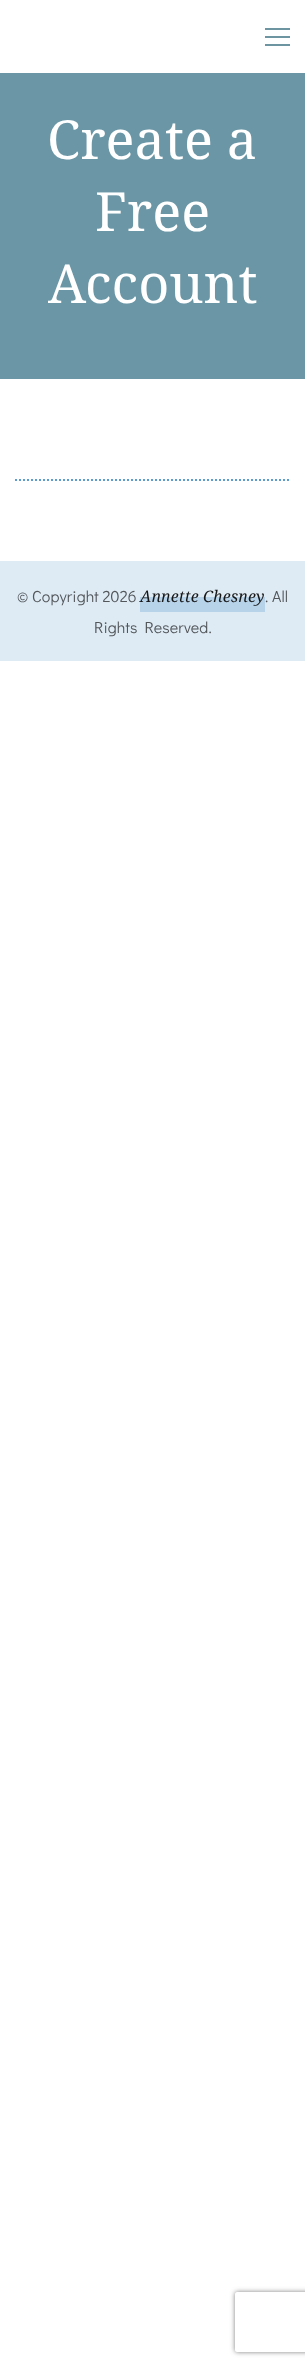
<?xml version="1.0" encoding="UTF-8"?>
<svg xmlns="http://www.w3.org/2000/svg" width="305" height="2366">
    <defs>
        <clipPath id="clip1"><path d="M 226 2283 H 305 V 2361 H 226 Z M 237 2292 H 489 C 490 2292 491 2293 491 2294 V 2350 C 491 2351 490 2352 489 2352 H 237 C 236 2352 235 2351 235 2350 V 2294 C 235 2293 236 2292 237 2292 Z" clip-rule="evenodd"/></clipPath>
        <filter id="blur1" x="-50%" y="-200%" width="200%" height="500%"><feGaussianBlur stdDeviation="2.5"/></filter>
    </defs>
    <rect width="100%" height="100%" fill="#FFFFFF"/>
    <rect x="265" y="28" width="25" height="2" fill="#6C95A1"/>
    <rect x="265" y="36" width="25" height="2" fill="#6C95A1"/>
    <rect x="265" y="44" width="25" height="2" fill="#6C95A1"/>
    <rect x="0" y="73" width="305" height="306" fill="#6A96A6"/>
    <text x="47" y="159" font-family="Noto Serif" font-size="54" fill="#FFFFFF">Create a</text>
    <text x="95" y="231" font-family="Noto Serif" font-size="54" fill="#FFFFFF">Free</text>
    <text x="48" y="303" font-family="Noto Serif" font-size="54" fill="#FFFFFF">Account</text>
    <path d="M 15 480 H 290" fill="none" stroke="#5C9CCF" stroke-width="2" stroke-dasharray="2 2"/>
    <rect x="0" y="561" width="305" height="100" fill="#DEEBF5"/>
    <text x="17" y="602" font-family="Didact Gothic" font-size="16" letter-spacing="0.1" fill="#53575A">© Copyright 2026</text>
    <rect x="140" y="597" width="125" height="15" fill="#B7D3EA"/>
    <text x="140" y="602" font-family="Noto Serif" font-size="16" font-style="italic" letter-spacing="0.1" fill="#171717">Annette Chesney</text>
    <text x="265" y="602" font-family="Didact Gothic" font-size="16" letter-spacing="0.1" fill="#53575A">. All</text>
    <text x="94" y="633" font-family="Didact Gothic" font-size="16" letter-spacing="0.1" fill="#53575A">Rights Reserved.</text>
    <g clip-path="url(#clip1)">
        <rect x="235" y="2292" width="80" height="60" rx="2" fill="#808080" filter="url(#blur1)"/>
    </g>
</svg>
